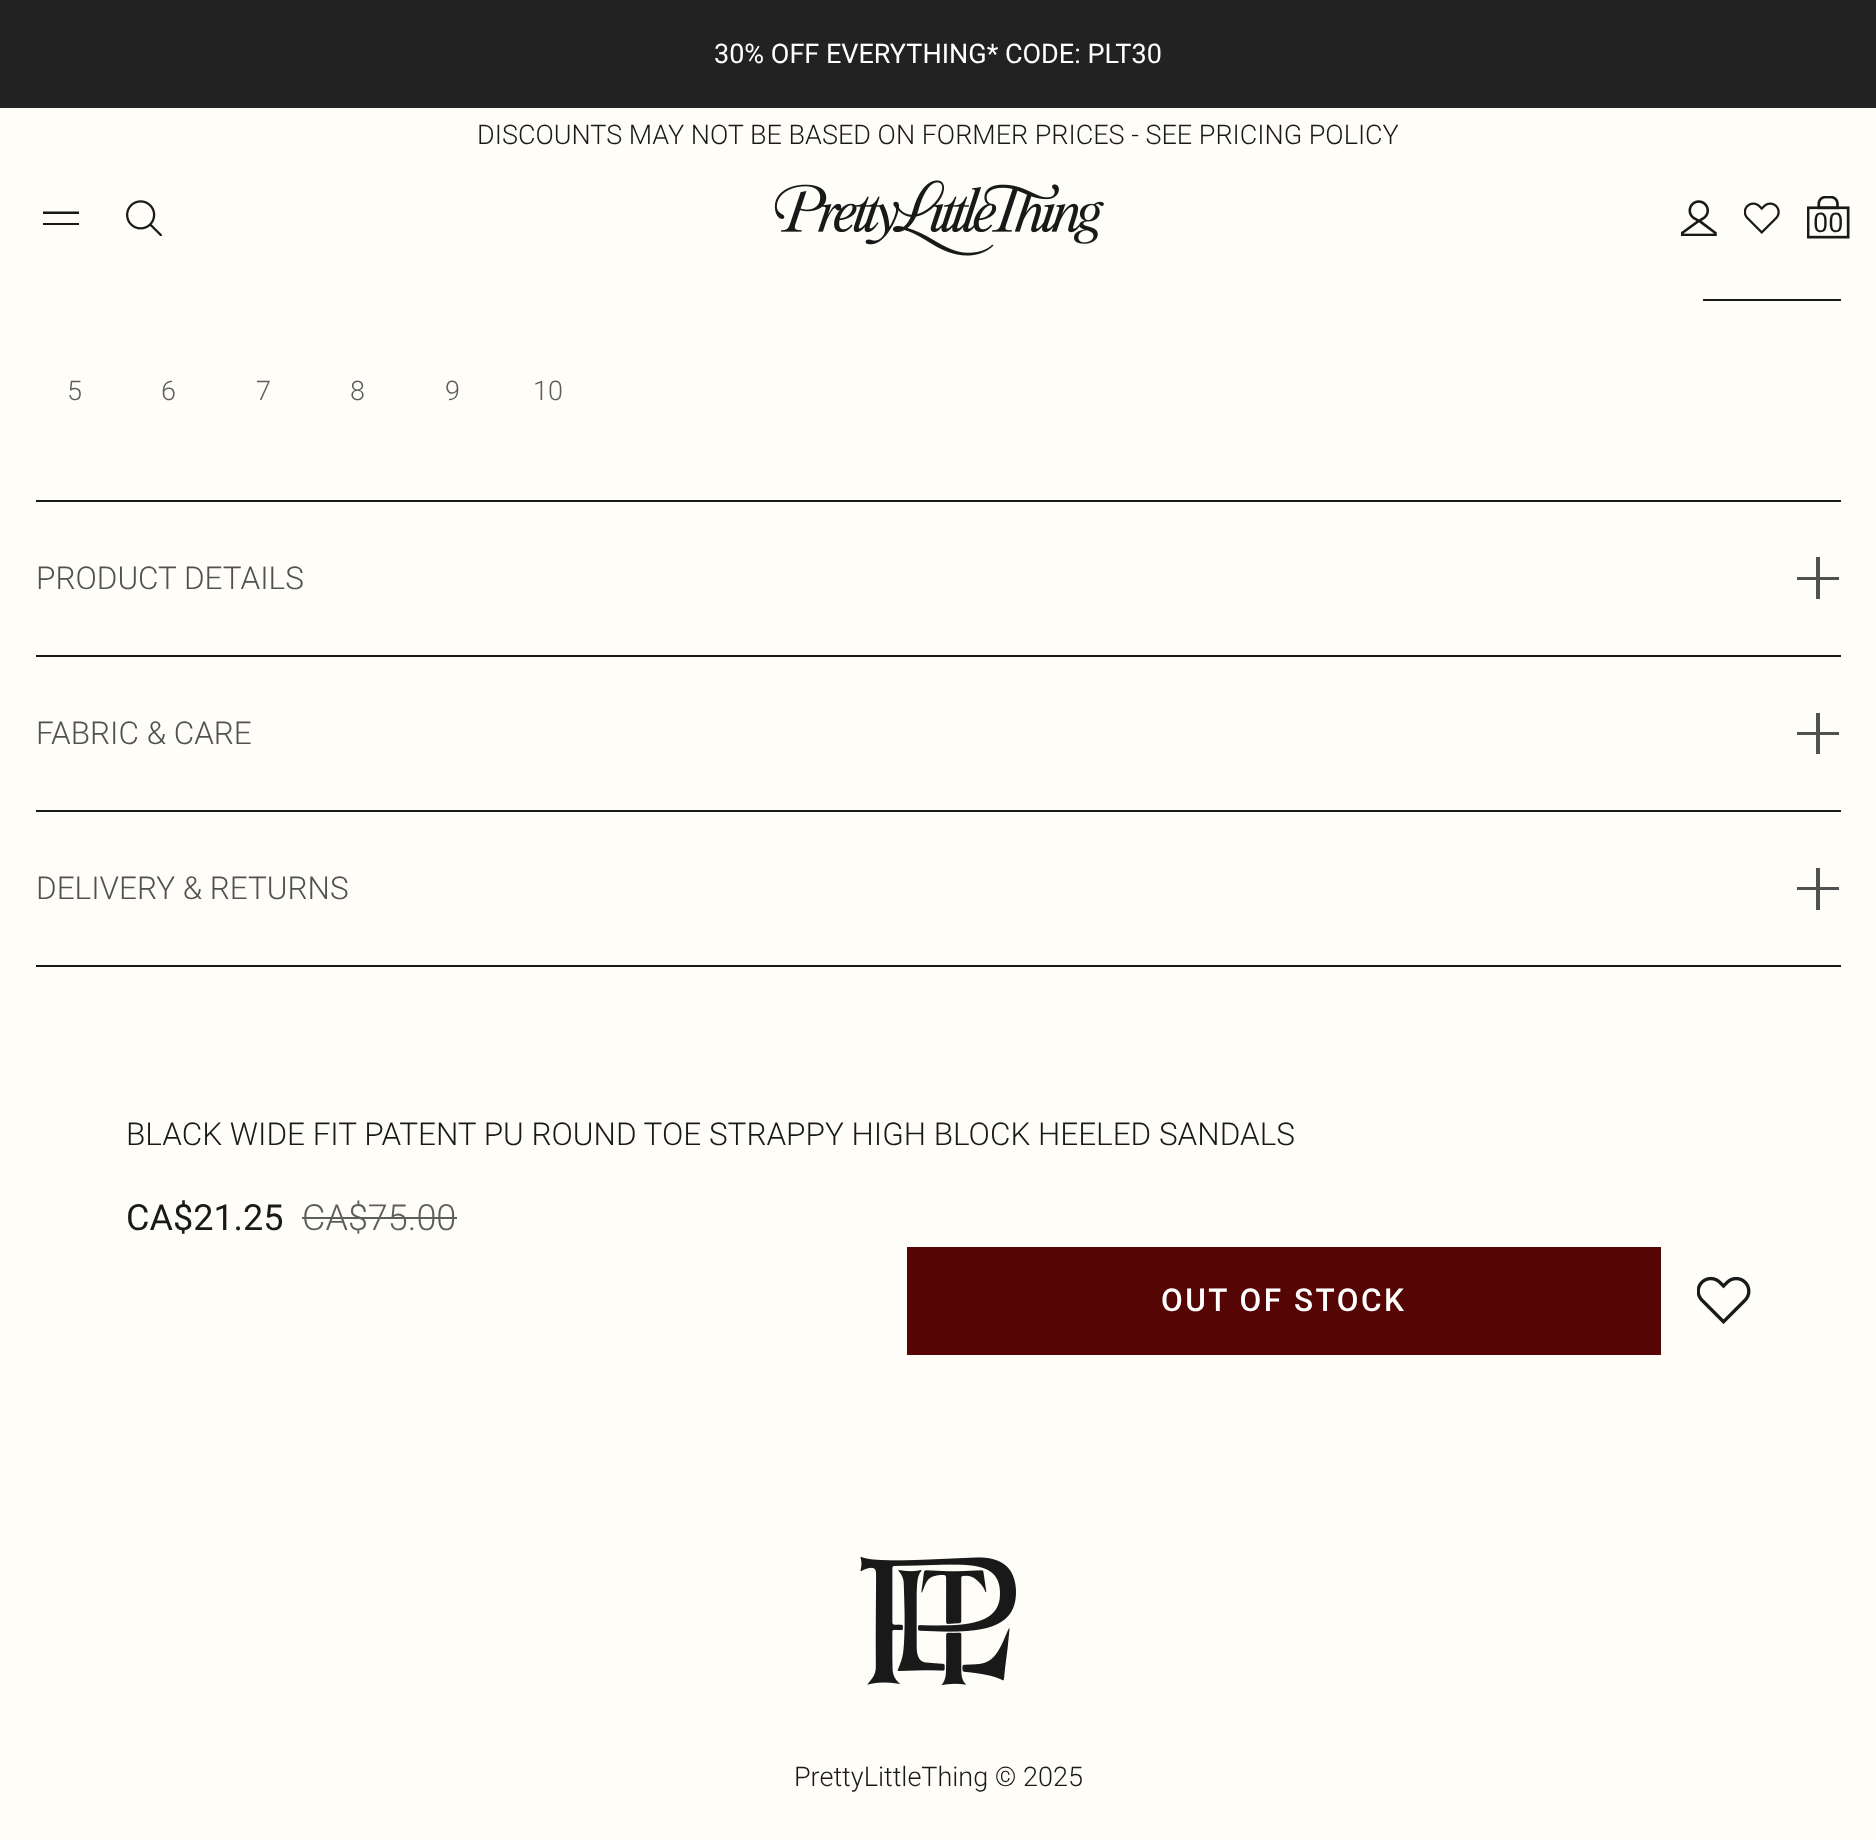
<?xml version="1.0" encoding="UTF-8"?>
<svg xmlns="http://www.w3.org/2000/svg" width="1876" height="1840">
    <rect width="100%" height="100%" fill="#FFFDF7"/>
    <rect x="0" y="0" width="1876" height="108" fill="#222222"/>
    <text x="714" y="63" font-family="Roboto" font-size="27" fill="#FFFFFF">30% OFF EVERYTHING* CODE: PLT30</text>
    <text x="477" y="144" font-family="Roboto" font-size="27" font-weight="300" fill="#191919">DISCOUNTS MAY NOT BE BASED ON FORMER PRICES - SEE PRICING POLICY</text>
    <path d="M 43 211.5 H 79 V 214 H 43 Z M 79 223 V 225 H 43 V 223 Z" fill="#191919"/>
    <image x="126" y="200" width="36" height="36" href="img_01.png"/>
    <image x="774" y="180" width="330" height="76" href="img_02.png"/>
    <image x="1681" y="200" width="36" height="36" href="img_03.png"/>
    <image x="1744" y="202" width="36" height="32" href="img_04.png"/>
    <image x="1807" y="196" width="43" height="43" href="img_05.png"/>
    <text x="1813" y="232" font-family="Roboto" font-size="27" fill="#191919">00</text>
    <rect x="1703" y="299" width="138" height="2" fill="#191919"/>
    <text x="67" y="400" font-family="Roboto" font-size="27" font-weight="300" fill="#5D5D5D">5</text>
    <text x="161" y="400" font-family="Roboto" font-size="27" font-weight="300" fill="#5D5D5D">6</text>
    <text x="256" y="400" font-family="Roboto" font-size="27" font-weight="300" fill="#5D5D5D">7</text>
    <text x="350" y="400" font-family="Roboto" font-size="27" font-weight="300" fill="#5D5D5D">8</text>
    <text x="445" y="400" font-family="Roboto" font-size="27" font-weight="300" fill="#5D5D5D">9</text>
    <text x="533" y="400" font-family="Roboto" font-size="27" font-weight="300" fill="#5D5D5D">10</text>
    <rect x="36" y="500" width="1805" height="2" fill="#191919"/>
    <text x="36" y="589" font-family="Roboto" font-size="31.5" font-weight="300" fill="#515151">PRODUCT DETAILS</text>
    <path d="M 1820 559 V 557 H 1816 V 577 H 1797 V 580 H 1816 V 599 H 1820 V 580 H 1839 V 577 H 1820 Z" fill="#515151"/>
    <rect x="36" y="655" width="1805" height="2" fill="#191919"/>
    <text x="36" y="744" font-family="Roboto" font-size="31.5" font-weight="300" fill="#515151">FABRIC &amp; CARE</text>
    <path d="M 1820 714 V 713 H 1816 V 732 H 1797 V 735 H 1816 V 754 H 1820 V 735 H 1839 V 732 H 1820 Z" fill="#515151"/>
    <rect x="36" y="810" width="1805" height="2" fill="#191919"/>
    <rect x="36" y="965" width="1805" height="2" fill="#191919"/>
    <text x="36" y="899" font-family="Roboto" font-size="31.5" font-weight="300" fill="#515151">DELIVERY &amp; RETURNS</text>
    <path d="M 1820 869 V 868 H 1816 V 887 H 1797 V 890 H 1816 V 910 H 1820 V 890 H 1839 V 887 H 1820 Z" fill="#515151"/>
    <text x="126" y="1145" font-family="Roboto" font-size="31.5" font-weight="300" fill="#191919">BLACK WIDE FIT PATENT PU ROUND TOE STRAPPY HIGH BLOCK HEELED SANDALS</text>
    <text x="126" y="1230" font-family="Roboto" font-size="36" fill="#191919">CA$21.25</text>
    <text x="302" y="1230" font-family="Roboto" font-size="36" font-weight="300" fill="#5D5D5D">CA$75.00</text>
    <rect x="302" y="1217" width="155" height="2" fill="#5D5D5D"/>
    <rect x="907" y="1247" width="754" height="108" fill="#550503"/>
    <text x="1161" y="1311" font-family="Roboto" font-size="31.5" font-weight="500" letter-spacing="2.5" fill="#FFFFFF">OUT OF STOCK</text>
    <image x="1697" y="1276" width="54" height="48" href="img_06.png"/>
    <image x="860" y="1557" width="156" height="129" href="img_07.png"/>
    <text x="794" y="1786" font-family="Roboto" font-size="27" font-weight="300" fill="#191919">PrettyLittleThing © 2025</text>
</svg>
